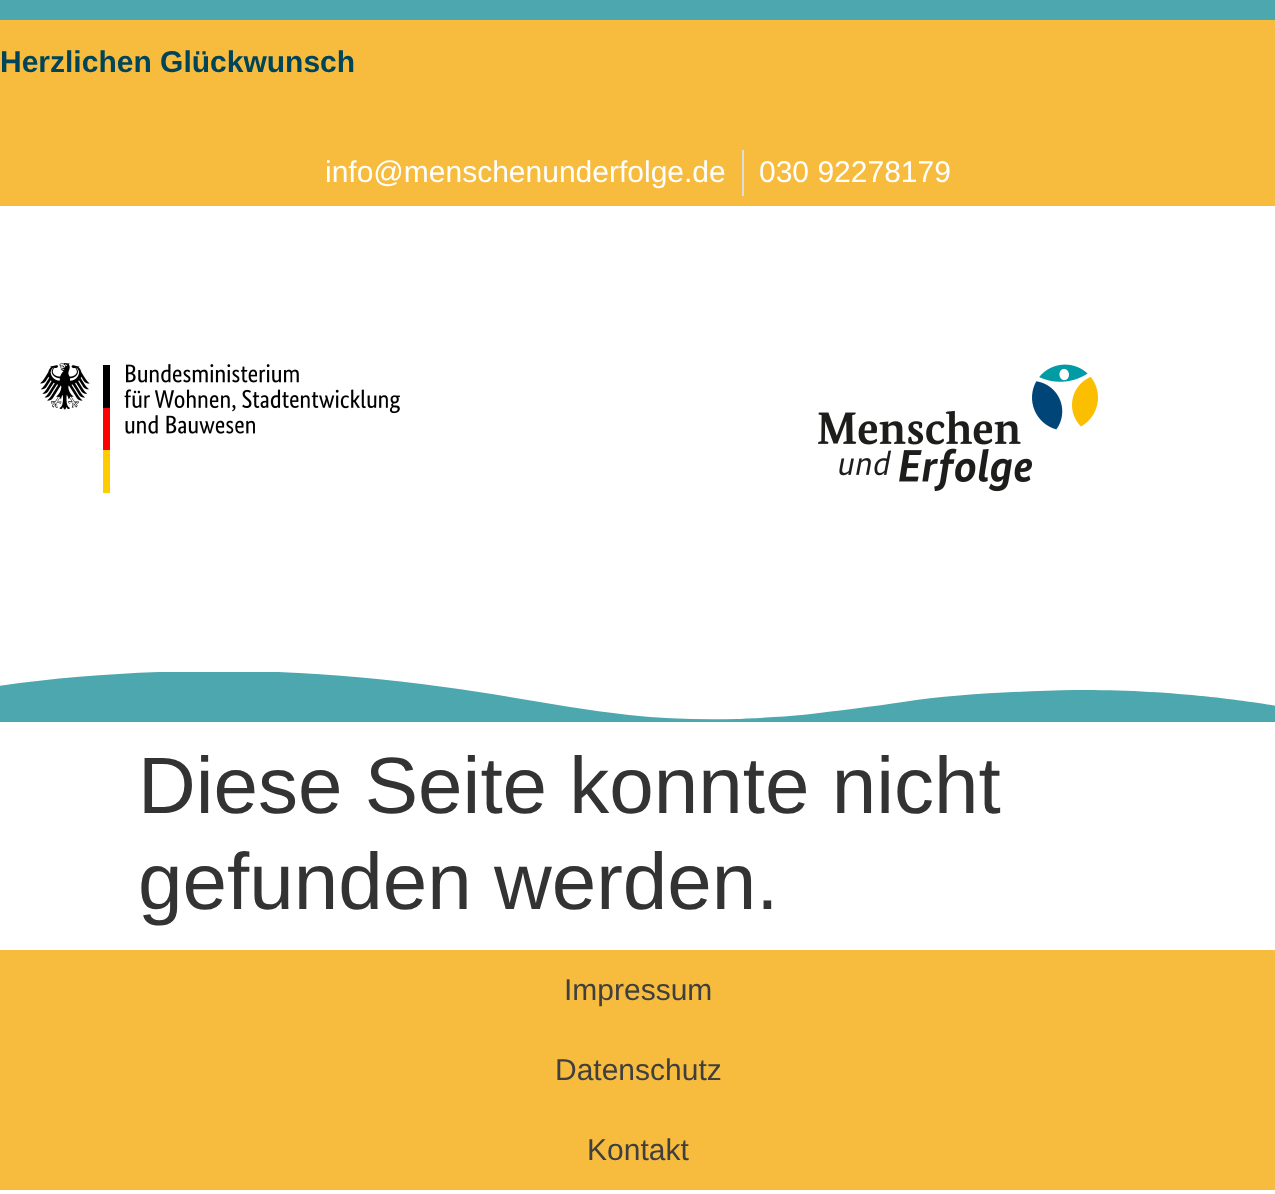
<?xml version="1.0" encoding="UTF-8"?>
<svg xmlns="http://www.w3.org/2000/svg" width="1275" height="1194">
    <defs>
        <clipPath id="clip1"><rect x="0" y="672" width="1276" height="52"/></clipPath>
    </defs>
    <rect width="100%" height="100%" fill="#FFFFFF"/>
    <rect x="0" y="0" width="1275" height="20" fill="#4DA7AE"/>
    <rect x="0" y="20" width="1275" height="186" fill="#F7BB3D"/>
    <text x="0" y="72" font-family="Liberation Sans" font-size="30" font-weight="700" fill="#004459">Herzlichen Glückwunsch</text>
    <text x="325" y="182" font-family="Liberation Sans" font-size="30" fill="#FFFFFF">info@menschenunderfolge.de</text>
    <rect x="742" y="150" width="2" height="46" fill="#DDDDDD"/>
    <text x="759" y="182" font-family="Liberation Sans" font-size="30" fill="#FFFFFF">030 92278179</text>
    <image x="40" y="363" width="360" height="130" href="img_01.png"/>
    <image x="1032" y="364" width="66" height="66" href="img_02.png"/>
    <image x="818" y="410" width="214" height="82" href="img_03.png"/>
    <g clip-path="url(#clip1)">
        <path d="M 738 719 C 702 720 665 719 629 715 C 567 708 506 695 444 687 C 350 674 254 668 159 672 C 105 674 52 678 -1 686 V 722 H 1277 V 706 C 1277 706 1185 689 1075 690 C 1025 691 956 694 903 702 C 876 706 837 711 802 715 C 767 718 751 718 738 719 Z" fill="#4DA7AE"/>
    </g>
    <text font-family="Liberation Sans" font-size="80" fill="#333333">
        <tspan x="138" y="813">Diese Seite konnte nicht</tspan>
        <tspan x="138" y="909">gefunden werden.</tspan>
    </text>
    <rect x="0" y="950" width="1275" height="240" fill="#F7BB3D"/>
    <text x="564" y="1000" font-family="Liberation Sans" font-size="30" fill="#3F3F3F">Impressum</text>
    <text x="555" y="1080" font-family="Liberation Sans" font-size="30" fill="#3F3F3F">Datenschutz</text>
    <text x="587" y="1160" font-family="Liberation Sans" font-size="30" fill="#3F3F3F">Kontakt</text>
</svg>
